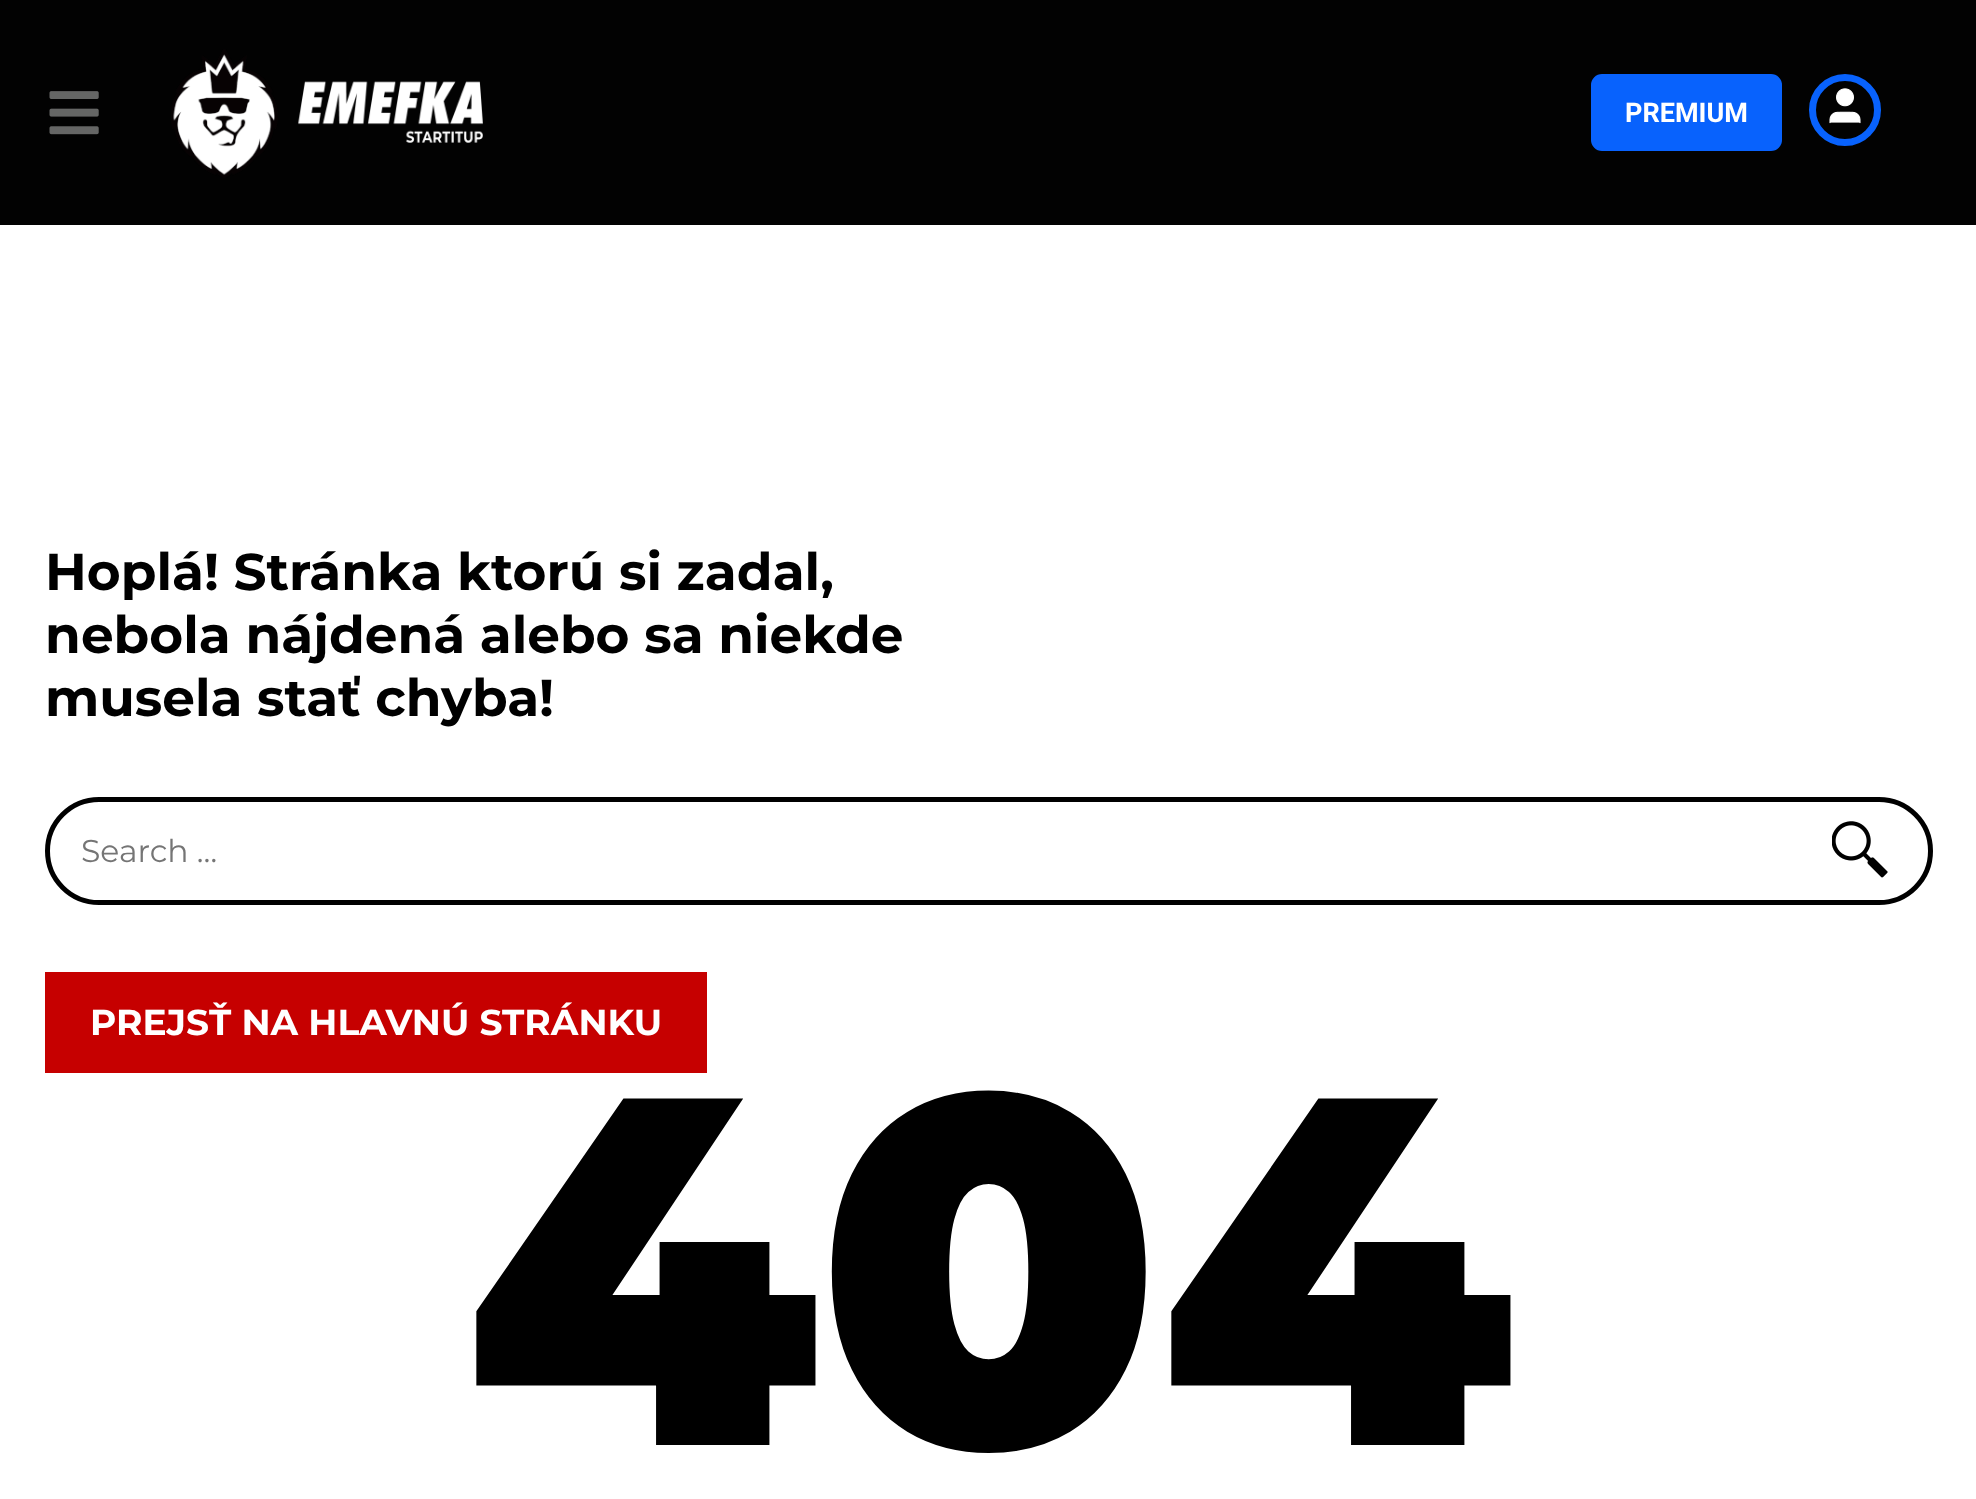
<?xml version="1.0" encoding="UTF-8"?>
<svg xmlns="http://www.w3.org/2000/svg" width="1976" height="1499">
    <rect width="100%" height="100%" fill="#FFFFFF"/>
    <rect x="0" y="0" width="1976" height="225" fill="#020202"/>
    <image x="49" y="91" width="50" height="44" href="img_01.png"/>
    <image x="171" y="49" width="312" height="129" href="img_02.png"/>
    <rect x="1591" y="74" width="191" height="77" rx="11" fill="#0862FD"/>
    <text x="1625" y="122" font-family="Roboto" font-size="27" font-weight="700" fill="#FFFFFF">PREMIUM</text>
    <circle cx="1845" cy="110" r="32.5" fill="none" stroke="#0862FD" stroke-width="7"/>
    <image x="1829" y="88" width="32" height="36" href="img_03.png"/>
    <text font-family="Montserrat" font-size="51.75" font-weight="700" fill="#000000">
        <tspan x="45" y="590">Hoplá! Stránka ktorú si zadal,</tspan>
        <tspan x="45" y="653">nebola nájdená alebo sa niekde</tspan>
        <tspan x="45" y="716">musela stať chyba!</tspan>
    </text>
    <rect x="47.5" y="799.5" width="1883" height="103" rx="51.5" fill="none" stroke="#000000" stroke-width="5"/>
    <text x="81" y="862" font-family="Montserrat" font-size="31.5" fill="#757575">Search …</text>
    <image x="1832" y="821" width="56" height="57" href="img_04.png"/>
    <rect x="45" y="972" width="662" height="101" fill="#C60000"/>
    <text x="90" y="1035" font-family="Montserrat" font-size="36" font-weight="700" fill="#FFFFFF">PREJSŤ NA HLAVNÚ STRÁNKU</text>
    <text x="465" y="1445" font-family="Montserrat" font-size="495" font-weight="900" fill="#000000">404</text>
</svg>
